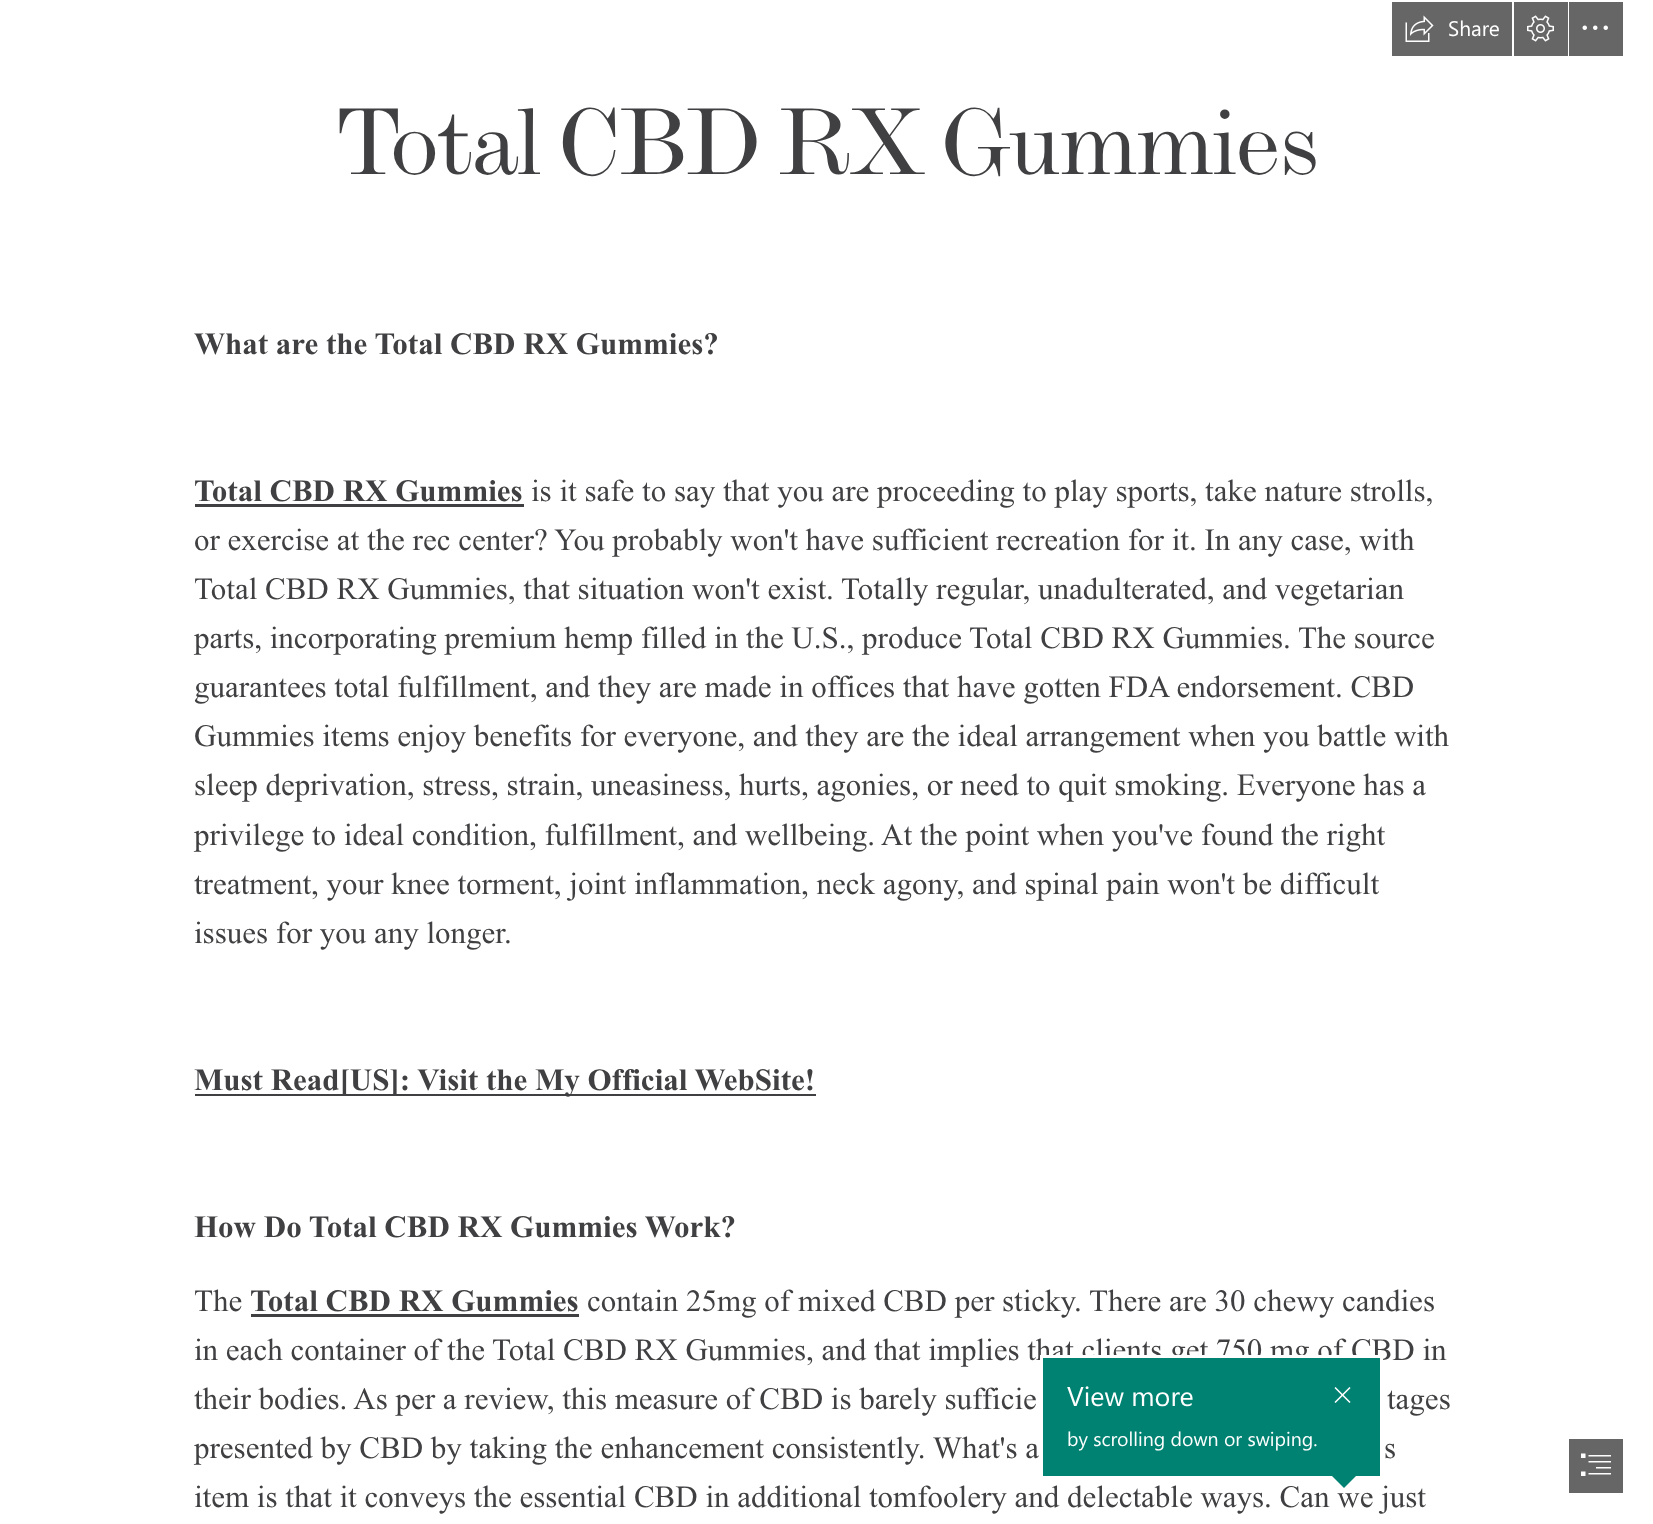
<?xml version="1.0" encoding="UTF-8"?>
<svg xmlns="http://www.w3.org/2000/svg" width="1653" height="1524">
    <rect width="100%" height="100%" fill="#FFFFFF"/>
    <rect x="1392" y="2" width="120" height="54" fill="#666666"/>
    <image x="1405" y="15" width="29" height="27" href="img_01.png"/>
    <text x="1448" y="36" font-family="Segoe UI" font-size="21" fill="#FFFFFF">Share</text>
    <rect x="1514" y="2" width="54" height="54" fill="#666666"/>
    <image x="1527" y="15" width="27" height="27" href="img_02.png"/>
    <rect x="1569" y="2" width="54" height="54" fill="#666666"/>
    <image x="1582" y="25" width="26" height="5" href="img_03.png"/>
    <text x="336" y="174" font-family="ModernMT" font-size="96.8" letter-spacing="-3.5" fill="#403F41">Total CBD RX Gummies</text>
    <text x="194" y="354" font-family="Times New Roman" font-size="31" font-weight="700" fill="#403F41">What are the Total CBD RX Gummies?</text>
    <text x="194" y="501" font-family="Times New Roman" font-size="31" font-weight="700" fill="#403F41">Total CBD RX Gummies</text>
    <rect x="195" y="504" width="329" height="3" fill="#403F41"/>
    <text x="531" y="501" font-family="Times New Roman" font-size="31" fill="#403F41">is it safe to say that you are proceeding to play sports, take nature strolls,</text>
    <text font-family="Times New Roman" font-size="31" fill="#403F41">
        <tspan x="194" y="550">or exercise at the rec center? You probably won't have sufficient recreation for it. In any case, with</tspan>
        <tspan x="194" y="599">Total CBD RX Gummies, that situation won't exist. Totally regular, unadulterated, and vegetarian</tspan>
        <tspan x="194" y="648">parts, incorporating premium hemp filled in the U.S., produce Total CBD RX Gummies. The source</tspan>
        <tspan x="194" y="697">guarantees total fulfillment, and they are made in offices that have gotten FDA endorsement. CBD</tspan>
        <tspan x="194" y="746">Gummies items enjoy benefits for everyone, and they are the ideal arrangement when you battle with</tspan>
        <tspan x="194" y="795">sleep deprivation, stress, strain, uneasiness, hurts, agonies, or need to quit smoking. Everyone has a</tspan>
        <tspan x="194" y="845">privilege to ideal condition, fulfillment, and wellbeing. At the point when you've found the right</tspan>
        <tspan x="194" y="894">treatment, your knee torment, joint inflammation, neck agony, and spinal pain won't be difficult</tspan>
        <tspan x="194" y="943">issues for you any longer.</tspan>
    </text>
    <rect x="195" y="1094" width="621" height="2" fill="#403F41"/>
    <text x="194" y="1090" font-family="Times New Roman" font-size="31" font-weight="700" fill="#403F41">Must Read[US]: Visit the My Official WebSite!</text>
    <text x="194" y="1237" font-family="Times New Roman" font-size="31" font-weight="700" fill="#403F41">How Do Total CBD RX Gummies Work?</text>
    <text x="194" y="1311" font-family="Times New Roman" font-size="31" fill="#403F41">The</text>
    <text x="250" y="1311" font-family="Times New Roman" font-size="31" font-weight="700" fill="#403F41">Total CBD RX Gummies</text>
    <rect x="251" y="1314" width="328" height="3" fill="#403F41"/>
    <text x="587" y="1311" font-family="Times New Roman" font-size="31" fill="#403F41">contain 25mg of mixed CBD per sticky. There are 30 chewy candies</text>
    <text font-family="Times New Roman" font-size="31" fill="#403F41">
        <tspan x="194" y="1360">in each container of the Total CBD RX Gummies, and that implies that clients get 750 mg of CBD in</tspan>
        <tspan x="194" y="1409">their bodies. As per a review, this measure of CBD is barely sufficie</tspan>
    </text>
    <text x="1387" y="1409" font-family="Times New Roman" font-size="31" fill="#403F41">tages</text>
    <text x="194" y="1458" font-family="Times New Roman" font-size="31" fill="#403F41">presented by CBD by taking the enhancement consistently. What's a</text>
    <text x="1384" y="1458" font-family="Times New Roman" font-size="31" fill="#403F41">s</text>
    <text x="194" y="1507" font-family="Times New Roman" font-size="31" fill="#403F41">item is that it conveys the essential CBD in additional tomfoolery and delectable ways. Can we just</text>
    <rect x="1041.5" y="1356.5" width="340" height="121" fill="#008272" stroke="#FFFFFF" stroke-width="3"/>
    <text x="1067" y="1406" font-family="Segoe UI" font-size="27" fill="#FFFFFF">View more</text>
    <text x="1067" y="1446" font-family="Segoe UI" font-size="19.5" fill="#FFFFFF">by scrolling down or swiping.</text>
    <image x="1334" y="1387" width="17" height="16" href="img_04.png"/>
    <path d="M 1332 1476 H 1356 L 1344 1488 Z" fill="#008272"/>
    <rect x="1569" y="1439" width="54" height="54" fill="#666666"/>
    <image x="1581" y="1453" width="30" height="23" href="img_05.png"/>
</svg>
